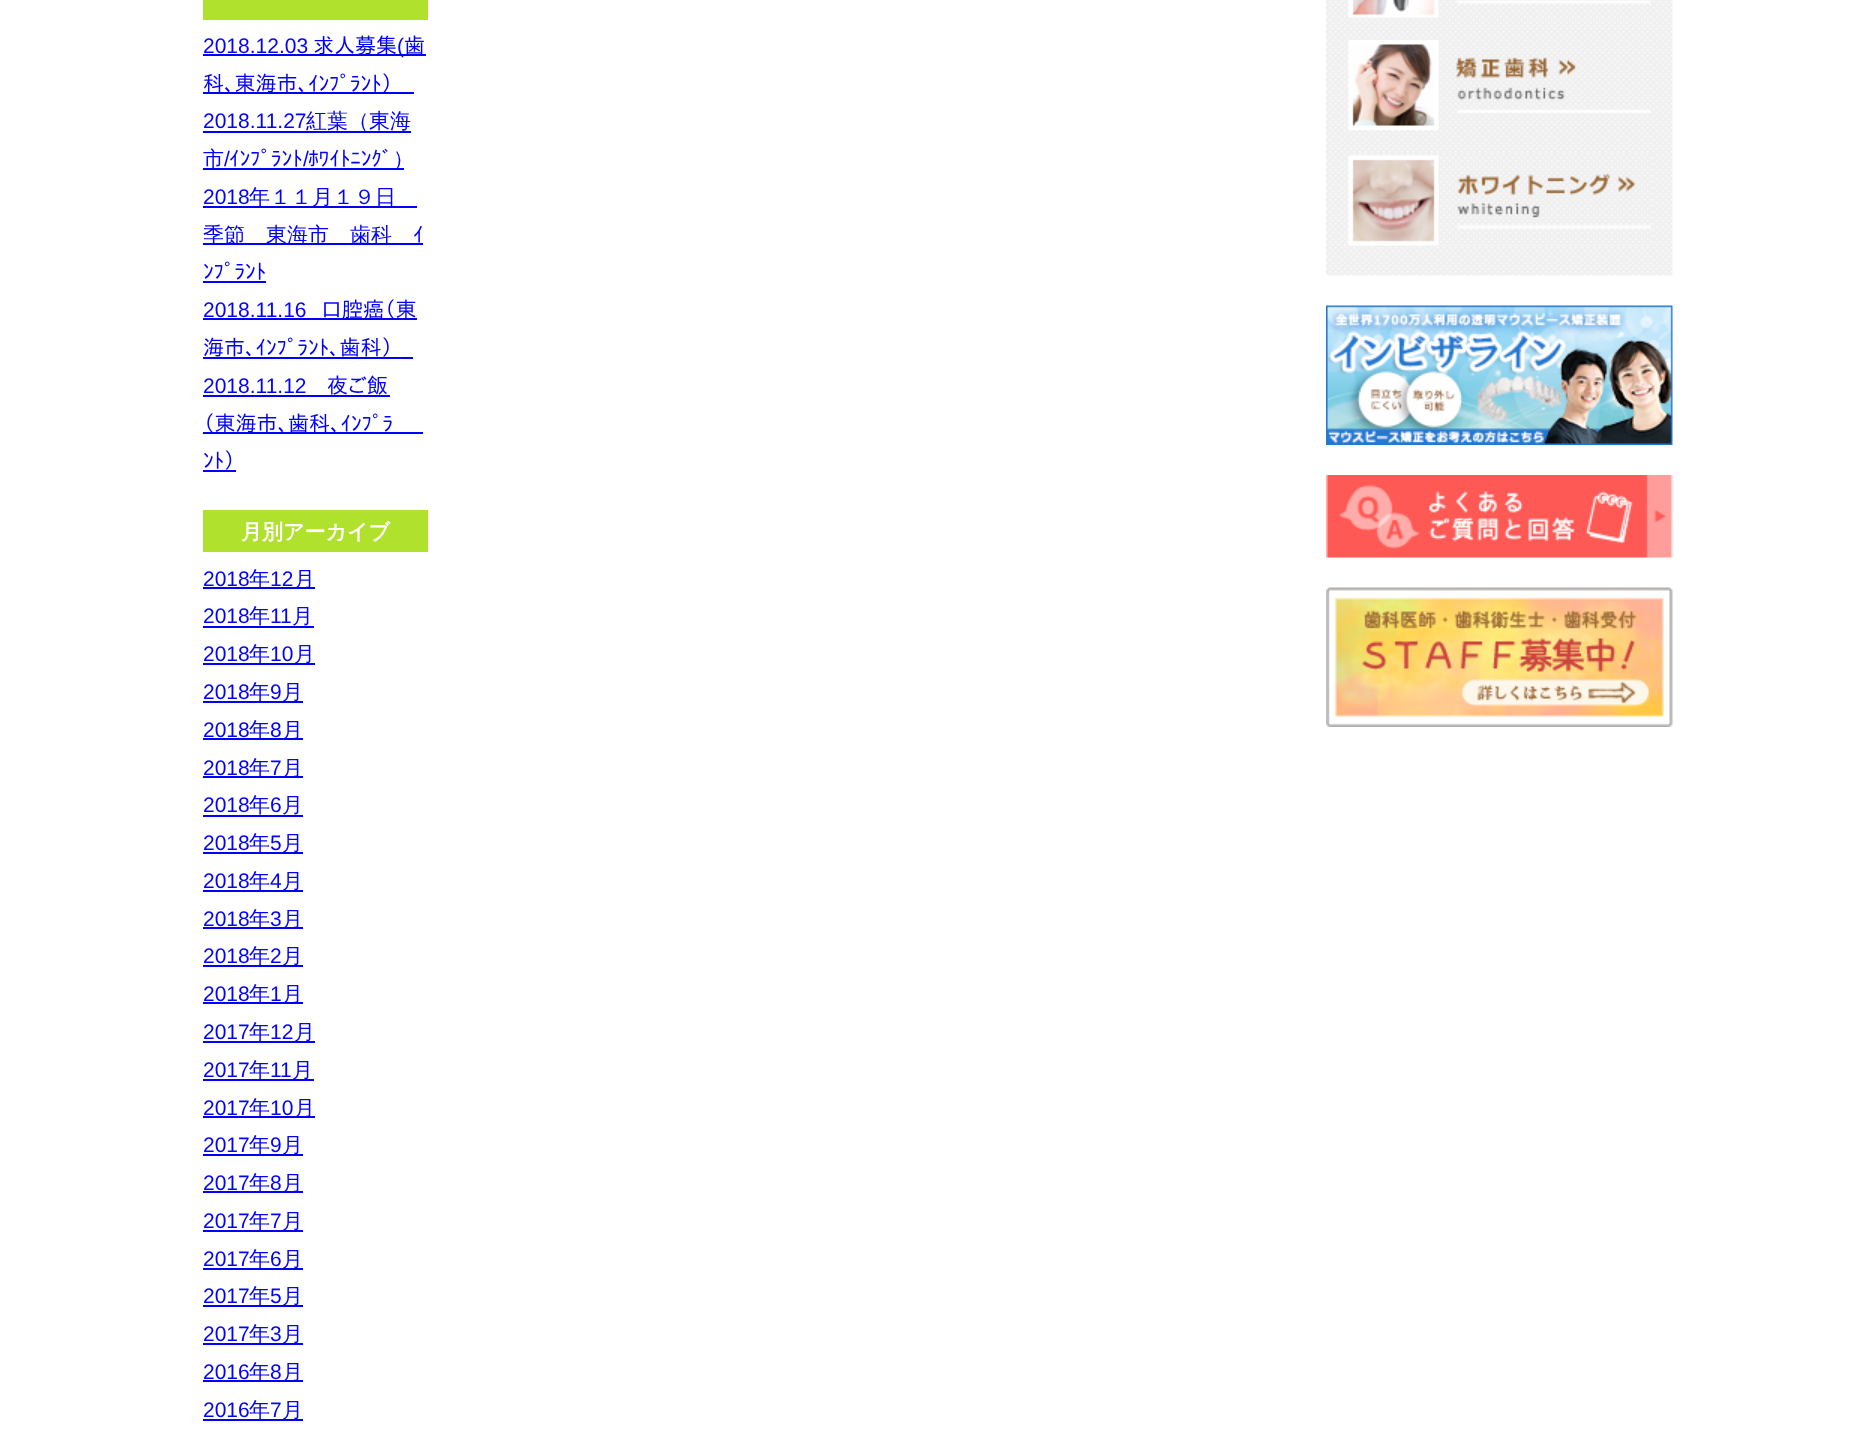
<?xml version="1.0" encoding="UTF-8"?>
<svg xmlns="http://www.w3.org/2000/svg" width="1875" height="1436">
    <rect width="100%" height="100%" fill="#FFFFFF"/>
    <rect x="203" y="0" width="225" height="20" fill="#B0E12C"/>
    <text x="203" y="53" font-family="Liberation Sans" font-size="21" fill="#0000FF">2018.12.03</text>
    <rect x="203" y="54" width="223" height="2" fill="#0000FF"/>
    <text x="313" y="53" font-family="IPAPGothic" font-size="21" fill="#0000FF">求人募集</text>
    <text x="397" y="53" font-family="Liberation Sans" font-size="21" fill="#0000FF">(</text>
    <text x="404" y="53" font-family="IPAPGothic" font-size="21" fill="#0000FF">歯</text>
    <rect x="203" y="92" width="211" height="2" fill="#0000FF"/>
    <text x="203" y="91" font-family="IPAPGothic" font-size="21" fill="#0000FF">科、東海市、ｲﾝﾌﾟﾗﾝﾄ）</text>
    <text x="203" y="128" font-family="Liberation Sans" font-size="21" fill="#0000FF">2018.11.27</text>
    <rect x="203" y="131" width="208" height="2" fill="#0000FF"/>
    <text x="306" y="128" font-family="WenQuanYi Zen Hei" font-size="21" font-weight="500" fill="#0000FF">紅葉（東海</text>
    <rect x="203" y="168" width="201" height="2" fill="#0000FF"/>
    <text x="203" y="166" font-family="WenQuanYi Zen Hei" font-size="21" font-weight="500" fill="#0000FF">市</text>
    <text x="224" y="166" font-family="Liberation Sans" font-size="21" fill="#0000FF">/</text>
    <text x="229" y="166" font-family="IPAPGothic" font-size="21" fill="#0000FF">ｲﾝﾌﾟﾗﾝﾄ ﾎﾜｲﾄﾆﾝｸﾞ</text>
    <text x="303" y="166" font-family="Liberation Sans" font-size="21" fill="#0000FF">/</text>
    <text x="393" y="166" font-family="WenQuanYi Zen Hei" font-size="21" font-weight="500" fill="#0000FF">）</text>
    <text x="203" y="204" font-family="Liberation Sans" font-size="21" fill="#0000FF">2018</text>
    <rect x="203" y="206" width="214" height="2" fill="#0000FF"/>
    <text x="249" y="204" font-family="WenQuanYi Zen Hei" font-size="21" font-weight="500" fill="#0000FF">年１１月１９日</text>
    <rect x="203" y="243" width="220" height="2" fill="#0000FF"/>
    <text x="203" y="242" font-family="WenQuanYi Zen Hei" font-size="21" font-weight="500" fill="#0000FF">季節　東海市　歯科</text>
    <text x="413" y="242" font-family="IPAPGothic" font-size="21" fill="#0000FF">ｲ</text>
    <text x="203" y="279" font-family="IPAPGothic" font-size="21" fill="#0000FF">ﾝﾌﾟﾗﾝﾄ</text>
    <rect x="203" y="281" width="63" height="2" fill="#0000FF"/>
    <text x="203" y="317" font-family="Liberation Sans" font-size="21" fill="#0000FF">2018.11.16</text>
    <rect x="203" y="318" width="214" height="2" fill="#0000FF"/>
    <text x="321" y="317" font-family="IPAPGothic" font-size="21" fill="#0000FF">口腔癌（東</text>
    <text x="203" y="355" font-family="IPAPGothic" font-size="21" fill="#0000FF">海市、ｲﾝﾌﾟﾗﾝﾄ、歯科）</text>
    <rect x="203" y="357" width="210" height="2" fill="#0000FF"/>
    <text x="203" y="393" font-family="Liberation Sans" font-size="21" fill="#0000FF">2018.11.12</text>
    <rect x="203" y="395" width="187" height="2" fill="#0000FF"/>
    <text x="327" y="393" font-family="IPAPGothic" font-size="21" fill="#0000FF">夜ご飯</text>
    <rect x="203" y="432" width="220" height="2" fill="#0000FF"/>
    <text font-family="IPAPGothic" font-size="21" fill="#0000FF">
        <tspan x="203" y="431">（東海市、歯科、ｲﾝﾌﾟﾗ</tspan>
        <tspan x="203" y="468">ﾝﾄ）</tspan>
    </text>
    <rect x="203" y="470" width="33" height="2" fill="#0000FF"/>
    <rect x="203" y="510" width="225" height="42" fill="#B0E12C"/>
    <text x="241" y="539" font-family="WenQuanYi Zen Hei" font-size="21" font-weight="700" fill="#FFFFFF">月別アーカイブ</text>
    <text x="203" y="586" font-family="Liberation Sans" font-size="21" fill="#0000FF">2018</text>
    <rect x="203" y="587" width="112" height="2" fill="#0000FF"/>
    <text x="249" y="586" font-family="WenQuanYi Zen Hei" font-size="21" font-weight="500" fill="#0000FF">年</text>
    <text x="270" y="586" font-family="Liberation Sans" font-size="21" fill="#0000FF">12</text>
    <text x="294" y="586" font-family="WenQuanYi Zen Hei" font-size="21" font-weight="500" fill="#0000FF">月</text>
    <text x="203" y="623" font-family="Liberation Sans" font-size="21" fill="#0000FF">2018</text>
    <rect x="203" y="626" width="111" height="2" fill="#0000FF"/>
    <text x="249" y="623" font-family="WenQuanYi Zen Hei" font-size="21" font-weight="500" fill="#0000FF">年</text>
    <text x="270" y="623" font-family="Liberation Sans" font-size="21" fill="#0000FF">11</text>
    <text x="292" y="623" font-family="WenQuanYi Zen Hei" font-size="21" font-weight="500" fill="#0000FF">月</text>
    <text x="203" y="661" font-family="Liberation Sans" font-size="21" fill="#0000FF">2018</text>
    <rect x="203" y="663" width="112" height="2" fill="#0000FF"/>
    <text x="249" y="661" font-family="WenQuanYi Zen Hei" font-size="21" font-weight="500" fill="#0000FF">年</text>
    <text x="270" y="661" font-family="Liberation Sans" font-size="21" fill="#0000FF">10</text>
    <text x="294" y="661" font-family="WenQuanYi Zen Hei" font-size="21" font-weight="500" fill="#0000FF">月</text>
    <text x="203" y="699" font-family="Liberation Sans" font-size="21" fill="#0000FF">2018</text>
    <rect x="203" y="701" width="100" height="2" fill="#0000FF"/>
    <text x="249" y="699" font-family="WenQuanYi Zen Hei" font-size="21" font-weight="500" fill="#0000FF">年</text>
    <text x="270" y="699" font-family="Liberation Sans" font-size="21" fill="#0000FF">9</text>
    <text x="282" y="699" font-family="WenQuanYi Zen Hei" font-size="21" font-weight="500" fill="#0000FF">月</text>
    <text x="203" y="737" font-family="Liberation Sans" font-size="21" fill="#0000FF">2018</text>
    <rect x="203" y="738" width="100" height="2" fill="#0000FF"/>
    <text x="249" y="737" font-family="WenQuanYi Zen Hei" font-size="21" font-weight="500" fill="#0000FF">年</text>
    <text x="270" y="737" font-family="Liberation Sans" font-size="21" fill="#0000FF">8</text>
    <text x="282" y="737" font-family="WenQuanYi Zen Hei" font-size="21" font-weight="500" fill="#0000FF">月</text>
    <text x="203" y="775" font-family="Liberation Sans" font-size="21" fill="#0000FF">2018</text>
    <rect x="203" y="776" width="100" height="2" fill="#0000FF"/>
    <text x="249" y="775" font-family="WenQuanYi Zen Hei" font-size="21" font-weight="500" fill="#0000FF">年</text>
    <text x="270" y="775" font-family="Liberation Sans" font-size="21" fill="#0000FF">7</text>
    <text x="282" y="775" font-family="WenQuanYi Zen Hei" font-size="21" font-weight="500" fill="#0000FF">月</text>
    <text x="203" y="812" font-family="Liberation Sans" font-size="21" fill="#0000FF">2018</text>
    <rect x="203" y="815" width="100" height="2" fill="#0000FF"/>
    <text x="249" y="812" font-family="WenQuanYi Zen Hei" font-size="21" font-weight="500" fill="#0000FF">年</text>
    <text x="270" y="812" font-family="Liberation Sans" font-size="21" fill="#0000FF">6</text>
    <text x="282" y="812" font-family="WenQuanYi Zen Hei" font-size="21" font-weight="500" fill="#0000FF">月</text>
    <text x="203" y="850" font-family="Liberation Sans" font-size="21" fill="#0000FF">2018</text>
    <rect x="203" y="852" width="100" height="2" fill="#0000FF"/>
    <text x="249" y="850" font-family="WenQuanYi Zen Hei" font-size="21" font-weight="500" fill="#0000FF">年</text>
    <text x="270" y="850" font-family="Liberation Sans" font-size="21" fill="#0000FF">5</text>
    <text x="282" y="850" font-family="WenQuanYi Zen Hei" font-size="21" font-weight="500" fill="#0000FF">月</text>
    <text x="203" y="888" font-family="Liberation Sans" font-size="21" fill="#0000FF">2018</text>
    <rect x="203" y="890" width="100" height="2" fill="#0000FF"/>
    <text x="249" y="888" font-family="WenQuanYi Zen Hei" font-size="21" font-weight="500" fill="#0000FF">年</text>
    <text x="270" y="888" font-family="Liberation Sans" font-size="21" fill="#0000FF">4</text>
    <text x="282" y="888" font-family="WenQuanYi Zen Hei" font-size="21" font-weight="500" fill="#0000FF">月</text>
    <text x="203" y="926" font-family="Liberation Sans" font-size="21" fill="#0000FF">2018</text>
    <rect x="203" y="927" width="100" height="2" fill="#0000FF"/>
    <text x="249" y="926" font-family="WenQuanYi Zen Hei" font-size="21" font-weight="500" fill="#0000FF">年</text>
    <text x="270" y="926" font-family="Liberation Sans" font-size="21" fill="#0000FF">3</text>
    <text x="282" y="926" font-family="WenQuanYi Zen Hei" font-size="21" font-weight="500" fill="#0000FF">月</text>
    <text x="203" y="963" font-family="Liberation Sans" font-size="21" fill="#0000FF">2018</text>
    <rect x="203" y="965" width="100" height="2" fill="#0000FF"/>
    <text x="249" y="963" font-family="WenQuanYi Zen Hei" font-size="21" font-weight="500" fill="#0000FF">年</text>
    <text x="270" y="963" font-family="Liberation Sans" font-size="21" fill="#0000FF">2</text>
    <text x="282" y="963" font-family="WenQuanYi Zen Hei" font-size="21" font-weight="500" fill="#0000FF">月</text>
    <text x="203" y="1001" font-family="Liberation Sans" font-size="21" fill="#0000FF">2018</text>
    <rect x="203" y="1002" width="100" height="2" fill="#0000FF"/>
    <text x="249" y="1001" font-family="WenQuanYi Zen Hei" font-size="21" font-weight="500" fill="#0000FF">年</text>
    <text x="270" y="1001" font-family="Liberation Sans" font-size="21" fill="#0000FF">1</text>
    <text x="282" y="1001" font-family="WenQuanYi Zen Hei" font-size="21" font-weight="500" fill="#0000FF">月</text>
    <text x="203" y="1039" font-family="Liberation Sans" font-size="21" fill="#0000FF">2017</text>
    <rect x="203" y="1041" width="112" height="2" fill="#0000FF"/>
    <text x="249" y="1039" font-family="WenQuanYi Zen Hei" font-size="21" font-weight="500" fill="#0000FF">年</text>
    <text x="270" y="1039" font-family="Liberation Sans" font-size="21" fill="#0000FF">12</text>
    <text x="294" y="1039" font-family="WenQuanYi Zen Hei" font-size="21" font-weight="500" fill="#0000FF">月</text>
    <text x="203" y="1077" font-family="Liberation Sans" font-size="21" fill="#0000FF">2017</text>
    <rect x="203" y="1079" width="111" height="2" fill="#0000FF"/>
    <text x="249" y="1077" font-family="WenQuanYi Zen Hei" font-size="21" font-weight="500" fill="#0000FF">年</text>
    <text x="270" y="1077" font-family="Liberation Sans" font-size="21" fill="#0000FF">11</text>
    <text x="292" y="1077" font-family="WenQuanYi Zen Hei" font-size="21" font-weight="500" fill="#0000FF">月</text>
    <text x="203" y="1115" font-family="Liberation Sans" font-size="21" fill="#0000FF">2017</text>
    <rect x="203" y="1116" width="112" height="2" fill="#0000FF"/>
    <text x="249" y="1115" font-family="WenQuanYi Zen Hei" font-size="21" font-weight="500" fill="#0000FF">年</text>
    <text x="270" y="1115" font-family="Liberation Sans" font-size="21" fill="#0000FF">10</text>
    <text x="294" y="1115" font-family="WenQuanYi Zen Hei" font-size="21" font-weight="500" fill="#0000FF">月</text>
    <text x="203" y="1152" font-family="Liberation Sans" font-size="21" fill="#0000FF">2017</text>
    <rect x="203" y="1154" width="100" height="2" fill="#0000FF"/>
    <text x="249" y="1152" font-family="WenQuanYi Zen Hei" font-size="21" font-weight="500" fill="#0000FF">年</text>
    <text x="270" y="1152" font-family="Liberation Sans" font-size="21" fill="#0000FF">9</text>
    <text x="282" y="1152" font-family="WenQuanYi Zen Hei" font-size="21" font-weight="500" fill="#0000FF">月</text>
    <text x="203" y="1190" font-family="Liberation Sans" font-size="21" fill="#0000FF">2017</text>
    <rect x="203" y="1191" width="100" height="2" fill="#0000FF"/>
    <text x="249" y="1190" font-family="WenQuanYi Zen Hei" font-size="21" font-weight="500" fill="#0000FF">年</text>
    <text x="270" y="1190" font-family="Liberation Sans" font-size="21" fill="#0000FF">8</text>
    <text x="282" y="1190" font-family="WenQuanYi Zen Hei" font-size="21" font-weight="500" fill="#0000FF">月</text>
    <text x="203" y="1228" font-family="Liberation Sans" font-size="21" fill="#0000FF">2017</text>
    <rect x="203" y="1230" width="100" height="2" fill="#0000FF"/>
    <text x="249" y="1228" font-family="WenQuanYi Zen Hei" font-size="21" font-weight="500" fill="#0000FF">年</text>
    <text x="270" y="1228" font-family="Liberation Sans" font-size="21" fill="#0000FF">7</text>
    <text x="282" y="1228" font-family="WenQuanYi Zen Hei" font-size="21" font-weight="500" fill="#0000FF">月</text>
    <text x="203" y="1266" font-family="Liberation Sans" font-size="21" fill="#0000FF">2017</text>
    <rect x="203" y="1268" width="100" height="2" fill="#0000FF"/>
    <text x="249" y="1266" font-family="WenQuanYi Zen Hei" font-size="21" font-weight="500" fill="#0000FF">年</text>
    <text x="270" y="1266" font-family="Liberation Sans" font-size="21" fill="#0000FF">6</text>
    <text x="282" y="1266" font-family="WenQuanYi Zen Hei" font-size="21" font-weight="500" fill="#0000FF">月</text>
    <text x="203" y="1303" font-family="Liberation Sans" font-size="21" fill="#0000FF">2017</text>
    <rect x="203" y="1305" width="100" height="2" fill="#0000FF"/>
    <text x="249" y="1303" font-family="WenQuanYi Zen Hei" font-size="21" font-weight="500" fill="#0000FF">年</text>
    <text x="270" y="1303" font-family="Liberation Sans" font-size="21" fill="#0000FF">5</text>
    <text x="282" y="1303" font-family="WenQuanYi Zen Hei" font-size="21" font-weight="500" fill="#0000FF">月</text>
    <text x="203" y="1341" font-family="Liberation Sans" font-size="21" fill="#0000FF">2017</text>
    <rect x="203" y="1343" width="100" height="2" fill="#0000FF"/>
    <text x="249" y="1341" font-family="WenQuanYi Zen Hei" font-size="21" font-weight="500" fill="#0000FF">年</text>
    <text x="270" y="1341" font-family="Liberation Sans" font-size="21" fill="#0000FF">3</text>
    <text x="282" y="1341" font-family="WenQuanYi Zen Hei" font-size="21" font-weight="500" fill="#0000FF">月</text>
    <text x="203" y="1379" font-family="Liberation Sans" font-size="21" fill="#0000FF">2016</text>
    <rect x="203" y="1380" width="100" height="2" fill="#0000FF"/>
    <text x="249" y="1379" font-family="WenQuanYi Zen Hei" font-size="21" font-weight="500" fill="#0000FF">年</text>
    <text x="270" y="1379" font-family="Liberation Sans" font-size="21" fill="#0000FF">8</text>
    <text x="282" y="1379" font-family="WenQuanYi Zen Hei" font-size="21" font-weight="500" fill="#0000FF">月</text>
    <text x="203" y="1417" font-family="Liberation Sans" font-size="21" fill="#0000FF">2016</text>
    <rect x="203" y="1419" width="100" height="2" fill="#0000FF"/>
    <text x="249" y="1417" font-family="WenQuanYi Zen Hei" font-size="21" font-weight="500" fill="#0000FF">年</text>
    <text x="270" y="1417" font-family="Liberation Sans" font-size="21" fill="#0000FF">7</text>
    <text x="282" y="1417" font-family="WenQuanYi Zen Hei" font-size="21" font-weight="500" fill="#0000FF">月</text>
    <image x="1326" y="0" width="347" height="276" href="img_01.png"/>
    <image x="1348" y="0" width="303" height="18" href="img_02.png"/>
    <image x="1348" y="40" width="303" height="90" href="img_03.png"/>
    <image x="1348" y="154" width="304" height="92" href="img_04.png"/>
    <image x="1326" y="305" width="347" height="140" href="img_05.png"/>
    <image x="1326" y="475" width="347" height="83" href="img_06.png"/>
    <image x="1326" y="587" width="347" height="140" href="img_07.png"/>
</svg>
